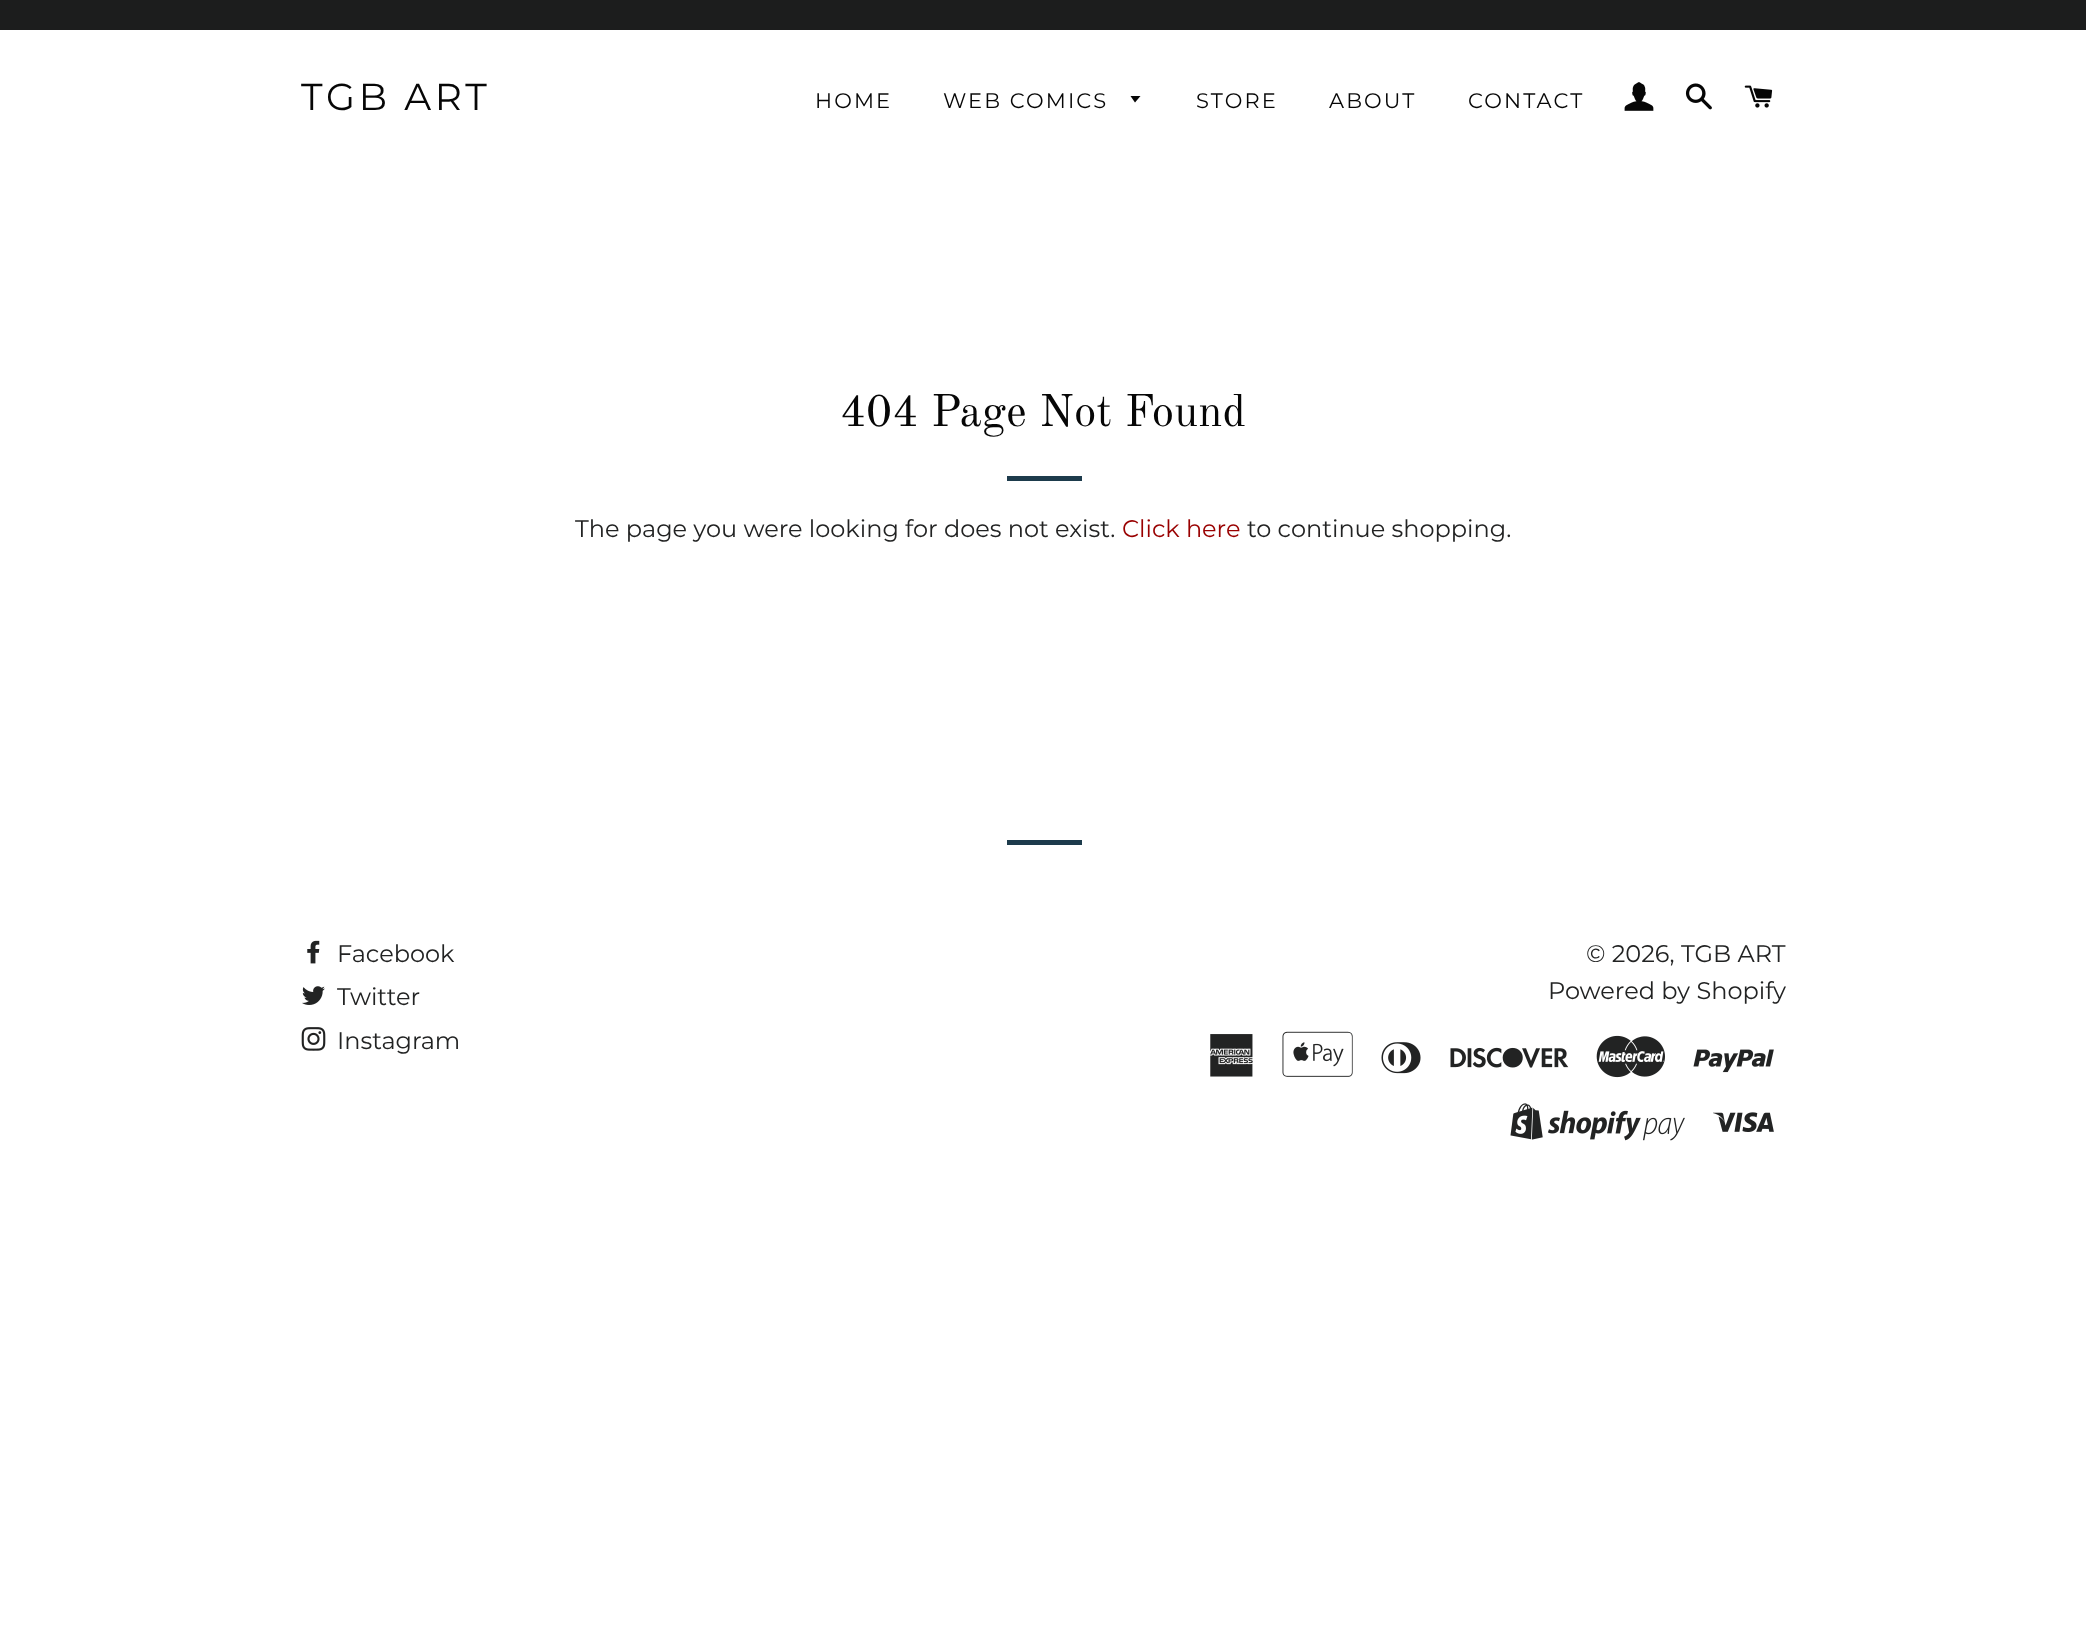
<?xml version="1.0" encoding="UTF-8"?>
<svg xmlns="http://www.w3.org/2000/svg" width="2086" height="1639">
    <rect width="100%" height="100%" fill="#FFFFFF"/>
    <rect x="0" y="0" width="2086" height="30" fill="#1C1D1D"/>
    <text x="301" y="110" font-family="Montserrat" font-size="37.5" font-weight="100" letter-spacing="3.75" fill="#060606">TGB ART</text>
    <text x="815" y="108" font-family="Montserrat" font-size="21" font-weight="100" letter-spacing="2.1" fill="#060606">HOME</text>
    <text x="943" y="108" font-family="Montserrat" font-size="21" font-weight="100" letter-spacing="2.1" fill="#060606">WEB COMICS</text>
    <path d="M 1130.5 96 L 1135 102.5 L 1140.5 96 Z" fill="#060606"/>
    <text x="1196" y="108" font-family="Montserrat" font-size="21" font-weight="100" letter-spacing="2.1" fill="#060606">STORE</text>
    <text x="1329" y="108" font-family="Montserrat" font-size="21" font-weight="100" letter-spacing="2.1" fill="#060606">ABOUT</text>
    <text x="1468" y="108" font-family="Montserrat" font-size="21" font-weight="100" letter-spacing="2.1" fill="#060606">CONTACT</text>
    <image x="1624" y="82" width="30" height="29" href="img_01.png"/>
    <image x="1685" y="83" width="27" height="27" href="img_02.png"/>
    <image x="1744" y="85" width="29" height="23" href="img_03.png"/>
    <text x="840" y="426" font-family="Old Standard TT" font-size="45" fill="#060606">404 Page Not Found</text>
    <rect x="1007" y="476" width="75" height="5" fill="#1D3B4C"/>
    <text x="575" y="537" font-family="Montserrat" font-size="24" font-weight="100" fill="#222323">The page you were looking for does not exist.</text>
    <text x="1122" y="537" font-family="Montserrat" font-size="24" font-weight="100" fill="#990000">Click here</text>
    <text x="1247" y="537" font-family="Montserrat" font-size="24" font-weight="100" fill="#222323">to continue shopping.</text>
    <rect x="1007" y="840" width="75" height="5" fill="#1D3B4C"/>
    <image x="307" y="940" width="13" height="24" href="img_04.png"/>
    <text x="337" y="962" font-family="Montserrat" font-size="24" font-weight="100" fill="#222323">Facebook</text>
    <image x="302" y="986" width="23" height="19" href="img_05.png"/>
    <text x="337" y="1005" font-family="Montserrat" font-size="24" font-weight="100" fill="#222323">Twitter</text>
    <image x="301" y="1027" width="25" height="24" href="img_06.png"/>
    <text x="337" y="1049" font-family="Montserrat" font-size="24" font-weight="100" fill="#222323">Instagram</text>
    <text x="1586" y="962" font-family="Montserrat" font-size="24" font-weight="100" fill="#222323">© 2026, TGB ART</text>
    <text x="1548" y="999" font-family="Montserrat" font-size="24" font-weight="100" fill="#222323">Powered by Shopify</text>
    <image x="1210" y="1034" width="43" height="43" href="img_07.png"/>
    <image x="1282" y="1031" width="71" height="46" href="img_08.png"/>
    <image x="1381" y="1042" width="40" height="32" href="img_09.png"/>
    <image x="1450" y="1047" width="119" height="21" href="img_10.png"/>
    <image x="1596" y="1035" width="69" height="43" href="img_11.png"/>
    <image x="1693" y="1049" width="81" height="24" href="img_12.png"/>
    <image x="1510" y="1103" width="175" height="38" href="img_13.png"/>
    <image x="1713" y="1112" width="61" height="20" href="img_14.png"/>
</svg>
